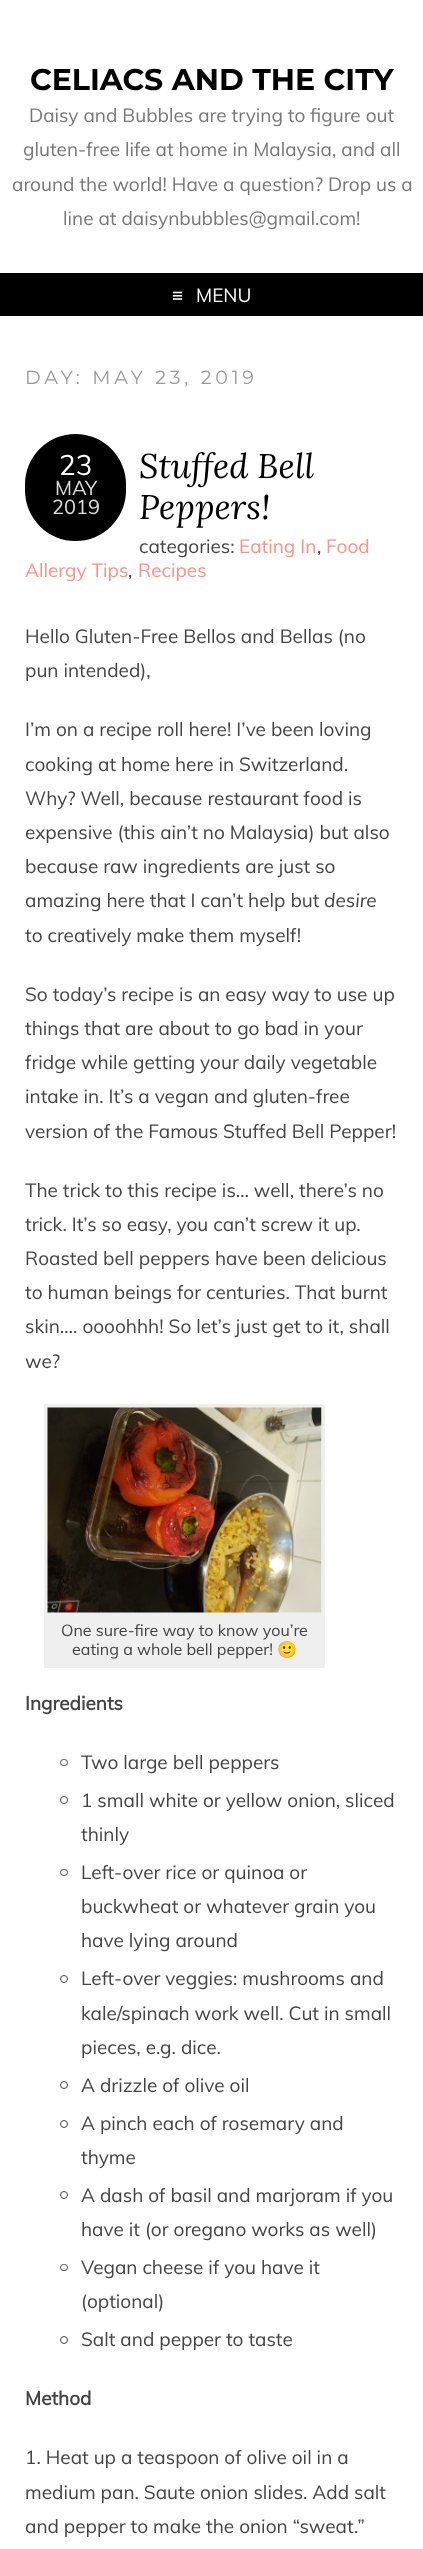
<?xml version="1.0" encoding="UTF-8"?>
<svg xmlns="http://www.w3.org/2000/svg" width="423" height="2549">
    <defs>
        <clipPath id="clip1"><rect x="25" y="434" width="374" height="147"/></clipPath>
    </defs>
    <rect width="100%" height="100%" fill="#FFFFFF"/>
    <text x="30" y="90" font-family="Montserrat" font-size="30" font-weight="700" fill="#000000">CELIACS AND THE CITY</text>
    <text x="29" y="122" font-family="Muli" font-size="19" fill="#777777">Daisy and Bubbles are trying to figure out</text>
    <text x="23" y="156" font-family="Muli" font-size="19" fill="#777777">gluten-free life at home in Malaysia, and all</text>
    <text x="12" y="191" font-family="Muli" font-size="19" fill="#777777">around the world! Have a question? Drop us a</text>
    <text x="63" y="225" font-family="Muli" font-size="19" fill="#777777">line at daisynbubbles@gmail.com!</text>
    <rect x="0" y="273" width="423" height="43" fill="#000000"/>
    <text x="172" y="302" font-family="Liberation Sans" font-size="19" fill="#FFFFFF">≡</text>
    <text x="196" y="302" font-family="Muli" font-size="19" fill="#FFFFFF">MENU</text>
    <text x="25" y="384" font-family="Montserrat" font-size="19" letter-spacing="3.75" fill="#999999">DAY: MAY 23, 2019</text>
    <rect x="25" y="434" width="101" height="107" rx="50.5" fill="#000000"/>
    <text x="59" y="475" font-family="Muli" font-size="28" fill="#FFFFFF">23</text>
    <text x="55" y="495" font-family="Muli" font-size="20" fill="#DDDDDD">MAY</text>
    <text x="52" y="514" font-family="Muli" font-size="20" fill="#DDDDDD">2019</text>
    <text font-family="Lora" font-size="34.25" font-style="italic" fill="#000000">
        <tspan x="139" y="478">Stuffed Bell</tspan>
        <tspan x="139" y="519">Peppers!</tspan>
    </text>
    <text x="139" y="553" font-family="Muli" font-size="19" fill="#444444">categories:</text>
    <text x="239" y="553" font-family="Muli" font-size="19" fill="#FF8F85">Eating In</text>
    <text x="317" y="553" font-family="Muli" font-size="19" fill="#444444">,</text>
    <text x="326" y="553" font-family="Muli" font-size="19" fill="#FF8F85">Food</text>
    <g clip-path="url(#clip1)">
        <text x="25" y="577" font-family="Muli" font-size="19" fill="#FF8F85">Allergy Tips</text>
    </g>
    <text x="128" y="577" font-family="Muli" font-size="19" fill="#444444">,</text>
    <text x="138" y="577" font-family="Muli" font-size="19" fill="#FF8F85">Recipes</text>
    <text font-family="Muli" font-size="19" fill="#444444">
        <tspan x="25" y="643">Hello Gluten-Free Bellos and Bellas (no</tspan>
        <tspan x="25" y="677">pun intended),</tspan>
    </text>
    <text font-family="Muli" font-size="19" fill="#444444">
        <tspan x="25" y="736">I’m on a recipe roll here! I’ve been loving</tspan>
        <tspan x="25" y="771">cooking at home here in Switzerland.</tspan>
        <tspan x="25" y="805">Why? Well, because restaurant food is</tspan>
        <tspan x="25" y="839">expensive (this ain’t no Malaysia) but also</tspan>
        <tspan x="25" y="873">because raw ingredients are just so</tspan>
        <tspan x="25" y="907">amazing here that I can’t help but</tspan>
    </text>
    <text x="324" y="907" font-family="Muli" font-size="19" font-style="italic" fill="#444444">desire</text>
    <text x="25" y="942" font-family="Muli" font-size="19" fill="#444444">to creatively make them myself!</text>
    <text font-family="Muli" font-size="19" fill="#444444">
        <tspan x="25" y="1001">So today’s recipe is an easy way to use up</tspan>
        <tspan x="25" y="1035">things that are about to go bad in your</tspan>
        <tspan x="25" y="1069">fridge while getting your daily vegetable</tspan>
        <tspan x="25" y="1103">intake in. It’s a vegan and gluten-free</tspan>
        <tspan x="25" y="1138">version of the Famous Stuffed Bell Pepper!</tspan>
    </text>
    <text font-family="Muli" font-size="19" fill="#444444">
        <tspan x="25" y="1197">The trick to this recipe is… well, there’s no</tspan>
        <tspan x="25" y="1231">trick. It’s so easy, you can’t screw it up.</tspan>
        <tspan x="25" y="1265">Roasted bell peppers have been delicious</tspan>
        <tspan x="25" y="1299">to human beings for centuries. That burnt</tspan>
        <tspan x="25" y="1333">skin…. oooohhh! So let’s just get to it, shall</tspan>
        <tspan x="25" y="1368">we?</tspan>
    </text>
    <rect x="44" y="1404" width="281" height="264" fill="#EFEFEF"/>
    <image x="47" y="1407" width="275" height="206" href="img_01.png"/>
    <text x="61" y="1636" font-family="Muli" font-size="16.1" fill="#444444">One sure-fire way to know you’re</text>
    <text x="72" y="1655" font-family="Muli" font-size="16.1" fill="#444444">eating a whole bell pepper!</text>
    <text x="277" y="1655" font-family="Noto Color Emoji" font-size="16.1" fill="#444444">🙂</text>
    <text x="25" y="1710" font-family="Muli" font-size="19" font-weight="700" fill="#444444">Ingredients</text>
    <rect x="60.5" y="1759.5" width="7" height="6" rx="3" fill="none" stroke="#444444"/>
    <text x="81" y="1769" font-family="Muli" font-size="19" fill="#444444">Two large bell peppers</text>
    <circle cx="64" cy="1800" r="3.5" fill="none" stroke="#444444"/>
    <text font-family="Muli" font-size="19" fill="#444444">
        <tspan x="81" y="1807">1 small white or yellow onion, sliced</tspan>
        <tspan x="81" y="1841">thinly</tspan>
    </text>
    <rect x="60.5" y="1869.5" width="7" height="6" rx="3" fill="none" stroke="#444444"/>
    <text font-family="Muli" font-size="19" fill="#444444">
        <tspan x="81" y="1879">Left-over rice or quinoa or</tspan>
        <tspan x="81" y="1913">buckwheat or whatever grain you</tspan>
        <tspan x="81" y="1947">have lying around</tspan>
    </text>
    <circle cx="64" cy="1979" r="3.5" fill="none" stroke="#444444"/>
    <text font-family="Muli" font-size="19" fill="#444444">
        <tspan x="81" y="1985">Left-over veggies: mushrooms and</tspan>
        <tspan x="81" y="2020">kale/spinach work well. Cut in small</tspan>
        <tspan x="81" y="2054">pieces, e.g. dice.</tspan>
    </text>
    <circle cx="64" cy="2085" r="3.5" fill="none" stroke="#444444"/>
    <text x="81" y="2092" font-family="Muli" font-size="19" fill="#444444">A drizzle of olive oil</text>
    <circle cx="64" cy="2124" r="3.5" fill="none" stroke="#444444"/>
    <text font-family="Muli" font-size="19" fill="#444444">
        <tspan x="81" y="2130">A pinch each of rosemary and</tspan>
        <tspan x="81" y="2164">thyme</tspan>
    </text>
    <circle cx="64" cy="2195" r="3.5" fill="none" stroke="#444444"/>
    <text font-family="Muli" font-size="19" fill="#444444">
        <tspan x="81" y="2202">A dash of basil and marjoram if you</tspan>
        <tspan x="81" y="2236">have it (or oregano works as well)</tspan>
    </text>
    <rect x="60.5" y="2264.5" width="7" height="6" rx="3" fill="none" stroke="#444444"/>
    <text font-family="Muli" font-size="19" fill="#444444">
        <tspan x="81" y="2274">Vegan cheese if you have it</tspan>
        <tspan x="81" y="2308">(optional)</tspan>
    </text>
    <circle cx="64" cy="2340" r="3.5" fill="none" stroke="#444444"/>
    <text x="81" y="2346" font-family="Muli" font-size="19" fill="#444444">Salt and pepper to taste</text>
    <text x="25" y="2405" font-family="Muli" font-size="19" font-weight="700" fill="#444444">Method</text>
    <text font-family="Muli" font-size="19" fill="#444444">
        <tspan x="25" y="2464">1. Heat up a teaspoon of olive oil in a</tspan>
        <tspan x="25" y="2499">medium pan. Saute onion slides. Add salt</tspan>
        <tspan x="25" y="2533">and pepper to make the onion “sweat.”</tspan>
    </text>
</svg>
